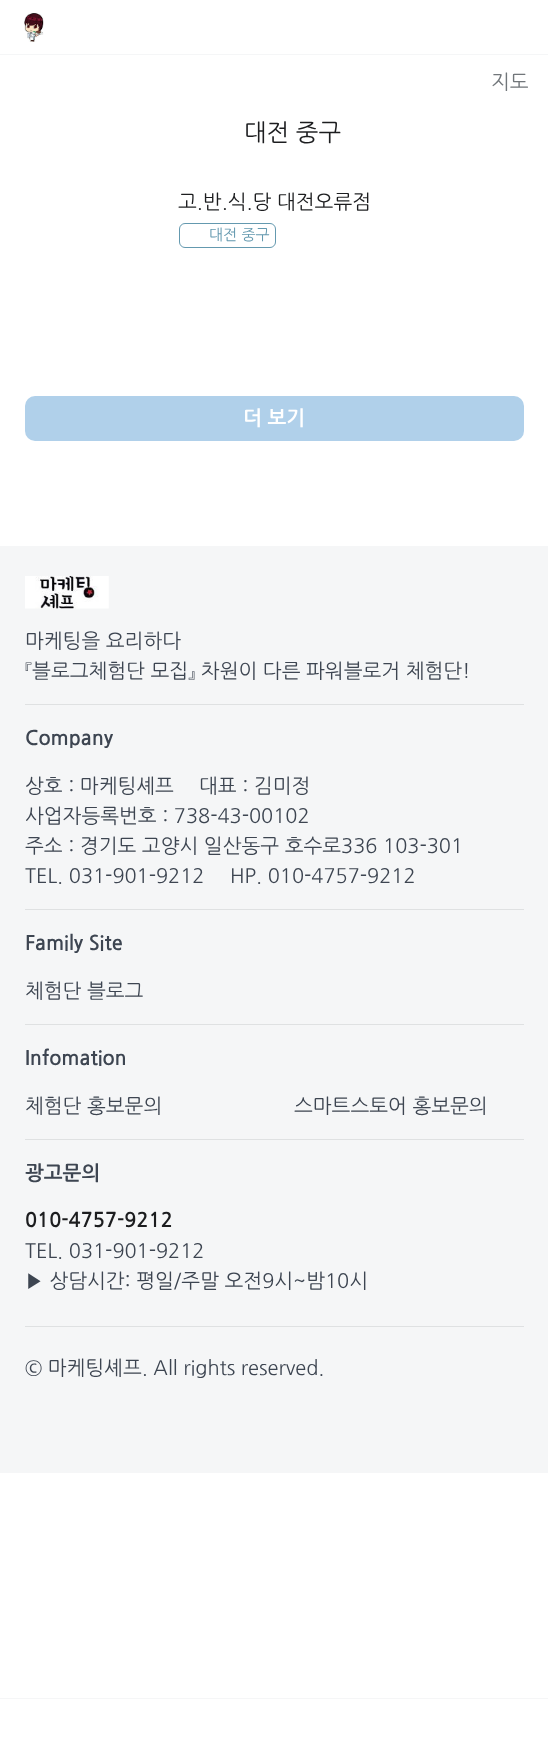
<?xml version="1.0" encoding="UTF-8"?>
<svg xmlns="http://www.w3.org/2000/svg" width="548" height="1752">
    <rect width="100%" height="100%" fill="#FFFFFF"/>
    <rect x="0" y="54" width="548" height="1" fill="#F5F6F7"/>
    <image x="24" y="12" width="20" height="30" href="img_01.png"/>
    <rect x="0" y="1698" width="548" height="1" fill="#F5F6F7"/>
    <text x="491" y="89" font-family="NanumGothic" font-size="20" fill="#71767A">지도</text>
    <text x="244" y="141" font-family="NanumGothic" font-size="24" fill="#1C1D1F">대전 중구</text>
    <text x="178" y="209" font-family="NanumGothic" font-size="20" fill="#1C1D1F">고.반.식.당 대전오류점</text>
    <rect x="179.5" y="223.5" width="96" height="24" rx="5.5" fill="none" stroke="#6499AF"/>
    <text x="209" y="240" font-family="NanumGothic" font-size="15" fill="#6499AF">대전 중구</text>
    <rect x="25" y="396" width="499" height="45" rx="10" fill="#B0D0EA"/>
    <text x="243" y="425" font-family="NanumGothic" font-size="20" font-weight="700" fill="#FFFFFF">더 보기</text>
    <rect x="0" y="546" width="548" height="927" fill="#F5F6F7"/>
    <image x="25" y="576" width="84" height="33" href="img_02.png"/>
    <text font-family="NanumGothic" font-size="20" fill="#3D4551">
        <tspan x="25" y="648">마케팅을 요리하다</tspan>
        <tspan x="25" y="678">『블로그체험단 모집』 차원이 다른 파워블로거 체험단!</tspan>
    </text>
    <rect x="25" y="704" width="499" height="1" fill="#DFE1E2"/>
    <text x="25" y="745" font-family="NanumGothic" font-size="20" font-weight="700" fill="#3D4551">Company</text>
    <text x="25" y="793" font-family="NanumGothic" font-size="20" fill="#3D4551">상호 : 마케팅셰프</text>
    <text x="199" y="793" font-family="NanumGothic" font-size="20" fill="#3D4551">대표 : 김미정</text>
    <text font-family="NanumGothic" font-size="20" fill="#3D4551">
        <tspan x="25" y="823">사업자등록번호 : 738-43-00102</tspan>
        <tspan x="25" y="853">주소 : 경기도 고양시 일산동구 호수로336 103-301</tspan>
        <tspan x="25" y="883">TEL. 031-901-9212</tspan>
    </text>
    <text x="230" y="883" font-family="NanumGothic" font-size="20" fill="#3D4551">HP. 010-4757-9212</text>
    <rect x="25" y="909" width="499" height="1" fill="#DFE1E2"/>
    <text x="25" y="950" font-family="NanumGothic" font-size="20" font-weight="700" fill="#3D4551">Family Site</text>
    <text x="25" y="998" font-family="NanumGothic" font-size="20" fill="#3D4551">체험단 블로그</text>
    <rect x="25" y="1024" width="499" height="1" fill="#DFE1E2"/>
    <text x="25" y="1065" font-family="NanumGothic" font-size="20" font-weight="700" fill="#3D4551">Infomation</text>
    <text x="25" y="1113" font-family="NanumGothic" font-size="20" fill="#3D4551">체험단 홍보문의</text>
    <text x="294" y="1113" font-family="NanumGothic" font-size="20" fill="#3D4551">스마트스토어 홍보문의</text>
    <rect x="25" y="1139" width="499" height="1" fill="#DFE1E2"/>
    <text x="25" y="1180" font-family="NanumGothic" font-size="20" font-weight="700" fill="#3D4551">광고문의</text>
    <text x="25" y="1227" font-family="NanumGothic" font-size="20" font-weight="700" fill="#1C1D1F">010-4757-9212</text>
    <text font-family="NanumGothic" font-size="20" fill="#3D4551">
        <tspan x="25" y="1258">TEL. 031-901-9212</tspan>
        <tspan x="25" y="1288">▶ 상담시간: 평일/주말 오전9시~밤10시</tspan>
    </text>
    <rect x="25" y="1326" width="499" height="1" fill="#DFE1E2"/>
    <text x="25" y="1375" font-family="NanumGothic" font-size="20" fill="#3D4551">© 마케팅셰프. All rights reserved.</text>
</svg>
